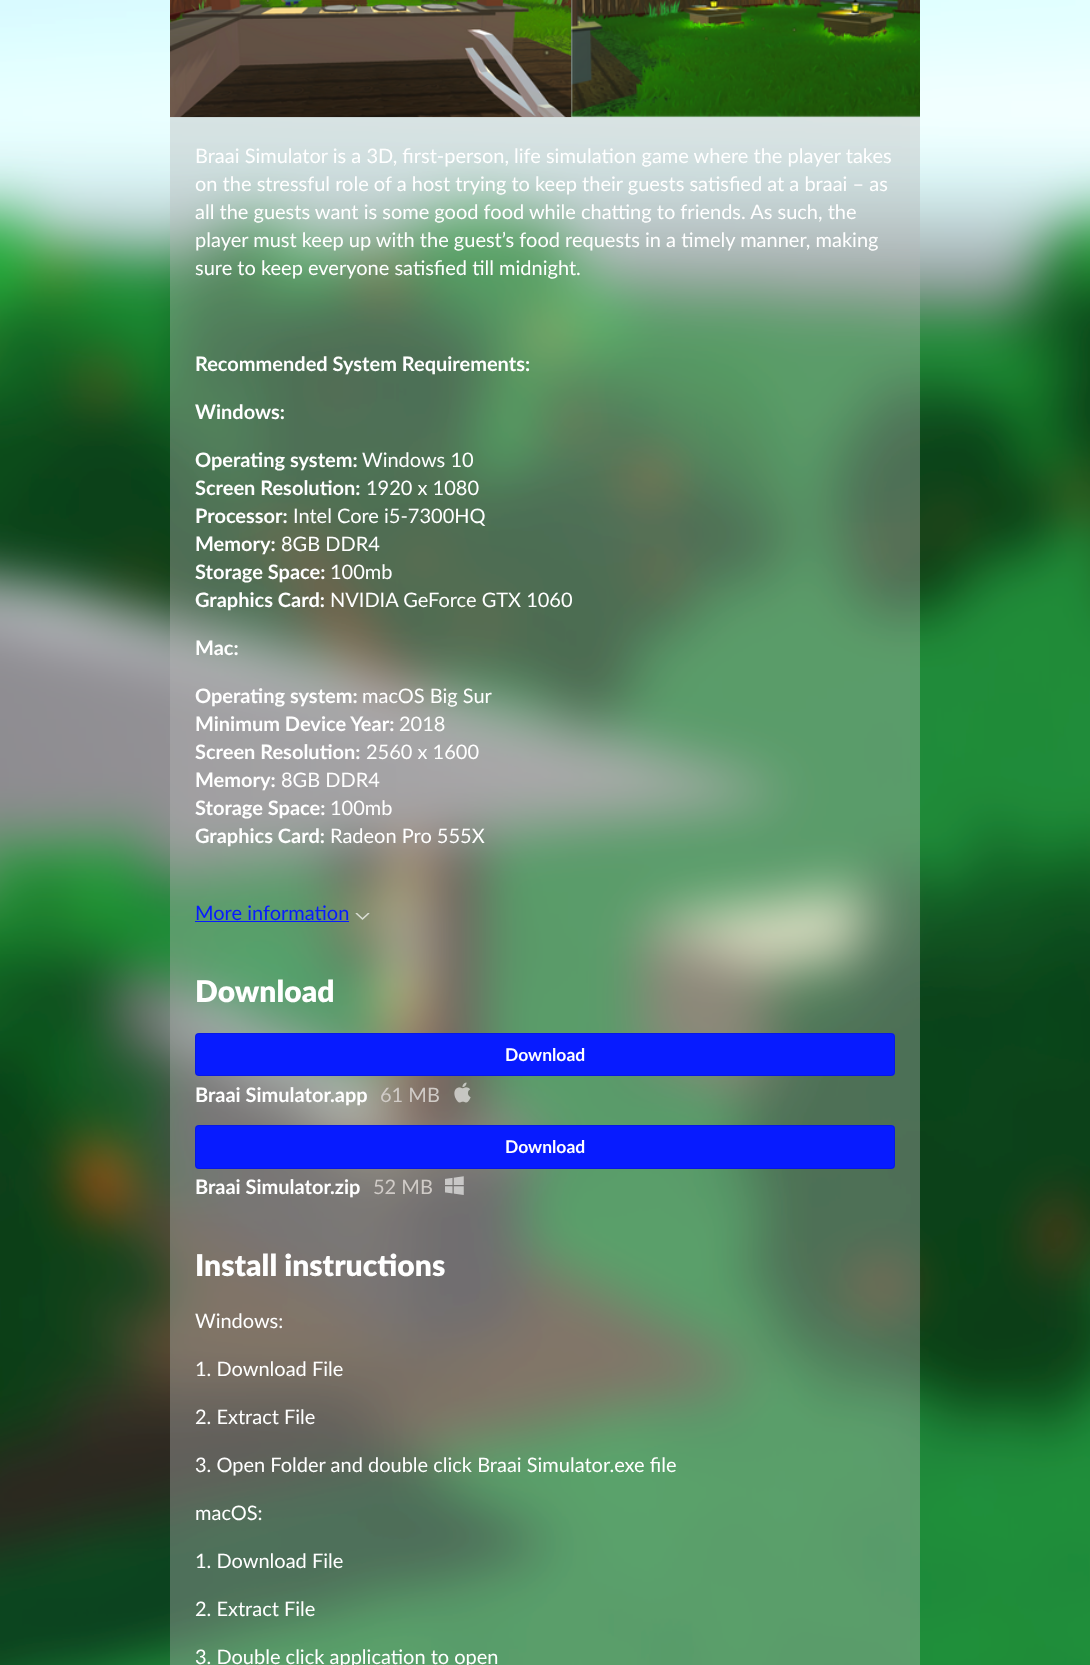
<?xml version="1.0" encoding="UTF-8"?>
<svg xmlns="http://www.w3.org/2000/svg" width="1090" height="1665">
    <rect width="100%" height="100%" fill="#FFFFFF"/>
    <image x="0" y="0" width="1090" height="1665" href="img_01.png"/>
    <rect x="170" y="0" width="750" height="1665" fill="#B8B8B8" fill-opacity="0.39"/>
    <image x="170" y="0" width="402" height="118" href="img_02.png"/>
    <image x="571" y="0" width="349" height="118" href="img_03.png"/>
    <text font-family="Lato" font-size="20" fill="#FFFFFF">
        <tspan x="195" y="163">Braai Simulator is a 3D, first-person, life simulation game where the player takes</tspan>
        <tspan x="195" y="191">on the stressful role of a host trying to keep their guests satisfied at a braai – as</tspan>
        <tspan x="195" y="219">all the guests want is some good food while chatting to friends. As such, the</tspan>
        <tspan x="195" y="247">player must keep up with the guest’s food requests in a timely manner, making</tspan>
        <tspan x="195" y="275">sure to keep everyone satisfied till midnight.</tspan>
    </text>
    <text x="195" y="371" font-family="Lato" font-size="20" font-weight="700" fill="#FFFFFF">Recommended System Requirements:</text>
    <text x="195" y="419" font-family="Lato" font-size="20" font-weight="700" fill="#FFFFFF">Windows:</text>
    <text x="195" y="467" font-family="Lato" font-size="20" font-weight="700" fill="#FFFFFF">Operating system:</text>
    <text x="362" y="467" font-family="Lato" font-size="20" fill="#FFFFFF">Windows 10</text>
    <text x="195" y="495" font-family="Lato" font-size="20" font-weight="700" fill="#FFFFFF">Screen Resolution:</text>
    <text x="366" y="495" font-family="Lato" font-size="20" fill="#FFFFFF">1920 x 1080</text>
    <text x="195" y="523" font-family="Lato" font-size="20" font-weight="700" fill="#FFFFFF">Processor:</text>
    <text x="293" y="523" font-family="Lato" font-size="20" fill="#FFFFFF">Intel Core i5-7300HQ</text>
    <text x="195" y="551" font-family="Lato" font-size="20" font-weight="700" fill="#FFFFFF">Memory:</text>
    <text x="281" y="551" font-family="Lato" font-size="20" fill="#FFFFFF">8GB DDR4</text>
    <text x="195" y="579" font-family="Lato" font-size="20" font-weight="700" fill="#FFFFFF">Storage Space:</text>
    <text x="330" y="579" font-family="Lato" font-size="20" fill="#FFFFFF">100mb</text>
    <text x="195" y="607" font-family="Lato" font-size="20" font-weight="700" fill="#FFFFFF">Graphics Card:</text>
    <text x="330" y="607" font-family="Lato" font-size="20" fill="#FFFFFF">NVIDIA GeForce GTX 1060</text>
    <text x="195" y="655" font-family="Lato" font-size="20" font-weight="700" fill="#FFFFFF">Mac:</text>
    <text x="195" y="703" font-family="Lato" font-size="20" font-weight="700" fill="#FFFFFF">Operating system:</text>
    <text x="362" y="703" font-family="Lato" font-size="20" fill="#FFFFFF">macOS Big Sur</text>
    <text x="195" y="731" font-family="Lato" font-size="20" font-weight="700" fill="#FFFFFF">Minimum Device Year:</text>
    <text x="399" y="731" font-family="Lato" font-size="20" fill="#FFFFFF">2018</text>
    <text x="195" y="759" font-family="Lato" font-size="20" font-weight="700" fill="#FFFFFF">Screen Resolution:</text>
    <text x="366" y="759" font-family="Lato" font-size="20" fill="#FFFFFF">2560 x 1600</text>
    <text x="195" y="787" font-family="Lato" font-size="20" font-weight="700" fill="#FFFFFF">Memory:</text>
    <text x="281" y="787" font-family="Lato" font-size="20" fill="#FFFFFF">8GB DDR4</text>
    <text x="195" y="815" font-family="Lato" font-size="20" font-weight="700" fill="#FFFFFF">Storage Space:</text>
    <text x="330" y="815" font-family="Lato" font-size="20" fill="#FFFFFF">100mb</text>
    <text x="195" y="843" font-family="Lato" font-size="20" font-weight="700" fill="#FFFFFF">Graphics Card:</text>
    <text x="330" y="843" font-family="Lato" font-size="20" fill="#FFFFFF">Radeon Pro 555X</text>
    <text x="195" y="920" font-family="Lato" font-size="20" fill="#071BFF">More information</text>
    <rect x="195" y="921" width="154" height="1" fill="#071BFF"/>
    <image x="355" y="913" width="15" height="7" href="img_04.png"/>
    <text x="195" y="1002" font-family="Lato" font-size="30" font-weight="900" fill="#FFFFFF">Download</text>
    <rect x="195" y="1033" width="700" height="43" rx="4" fill="#071BFF"/>
    <rect x="195.5" y="1033.5" width="699" height="42" rx="3.5" fill="none" stroke="#000000" stroke-opacity="0.1"/>
    <text x="505" y="1061" font-family="Lato" font-size="17.5" font-weight="700" fill="#FFFFFF">Download</text>
    <text x="195" y="1102" font-family="Lato" font-size="20" font-weight="700" fill="#FFFFFF">Braai Simulator.app</text>
    <text x="380" y="1102" font-family="Lato" font-size="20" fill="#D0CBC7">61 MB</text>
    <image x="454" y="1082" width="17" height="21" href="img_05.png"/>
    <rect x="195" y="1125" width="700" height="44" rx="4" fill="#071BFF"/>
    <rect x="195.5" y="1125.5" width="699" height="43" rx="3.5" fill="none" stroke="#000000" stroke-opacity="0.1"/>
    <text x="505" y="1153" font-family="Lato" font-size="17.5" font-weight="700" fill="#FFFFFF">Download</text>
    <text x="195" y="1194" font-family="Lato" font-size="20" font-weight="700" fill="#FFFFFF">Braai Simulator.zip</text>
    <text x="373" y="1194" font-family="Lato" font-size="20" fill="#D0CBC7">52 MB</text>
    <image x="445" y="1176" width="19" height="19" href="img_06.png"/>
    <text x="195" y="1276" font-family="Lato" font-size="30" font-weight="900" fill="#FFFFFF">Install instructions</text>
    <text x="195" y="1328" font-family="Lato" font-size="20" fill="#FFFFFF">Windows:</text>
    <text x="195" y="1376" font-family="Lato" font-size="20" fill="#FFFFFF">1. Download File</text>
    <text x="195" y="1424" font-family="Lato" font-size="20" fill="#FFFFFF">2. Extract File</text>
    <text x="195" y="1472" font-family="Lato" font-size="20" fill="#FFFFFF">3. Open Folder and double click Braai Simulator.exe file</text>
    <text x="195" y="1520" font-family="Lato" font-size="20" fill="#FFFFFF">macOS:</text>
    <text x="195" y="1568" font-family="Lato" font-size="20" fill="#FFFFFF">1. Download File</text>
    <text x="195" y="1616" font-family="Lato" font-size="20" fill="#FFFFFF">2. Extract File</text>
    <text x="195" y="1664" font-family="Lato" font-size="20" fill="#FFFFFF">3. Double click application to open</text>
</svg>
